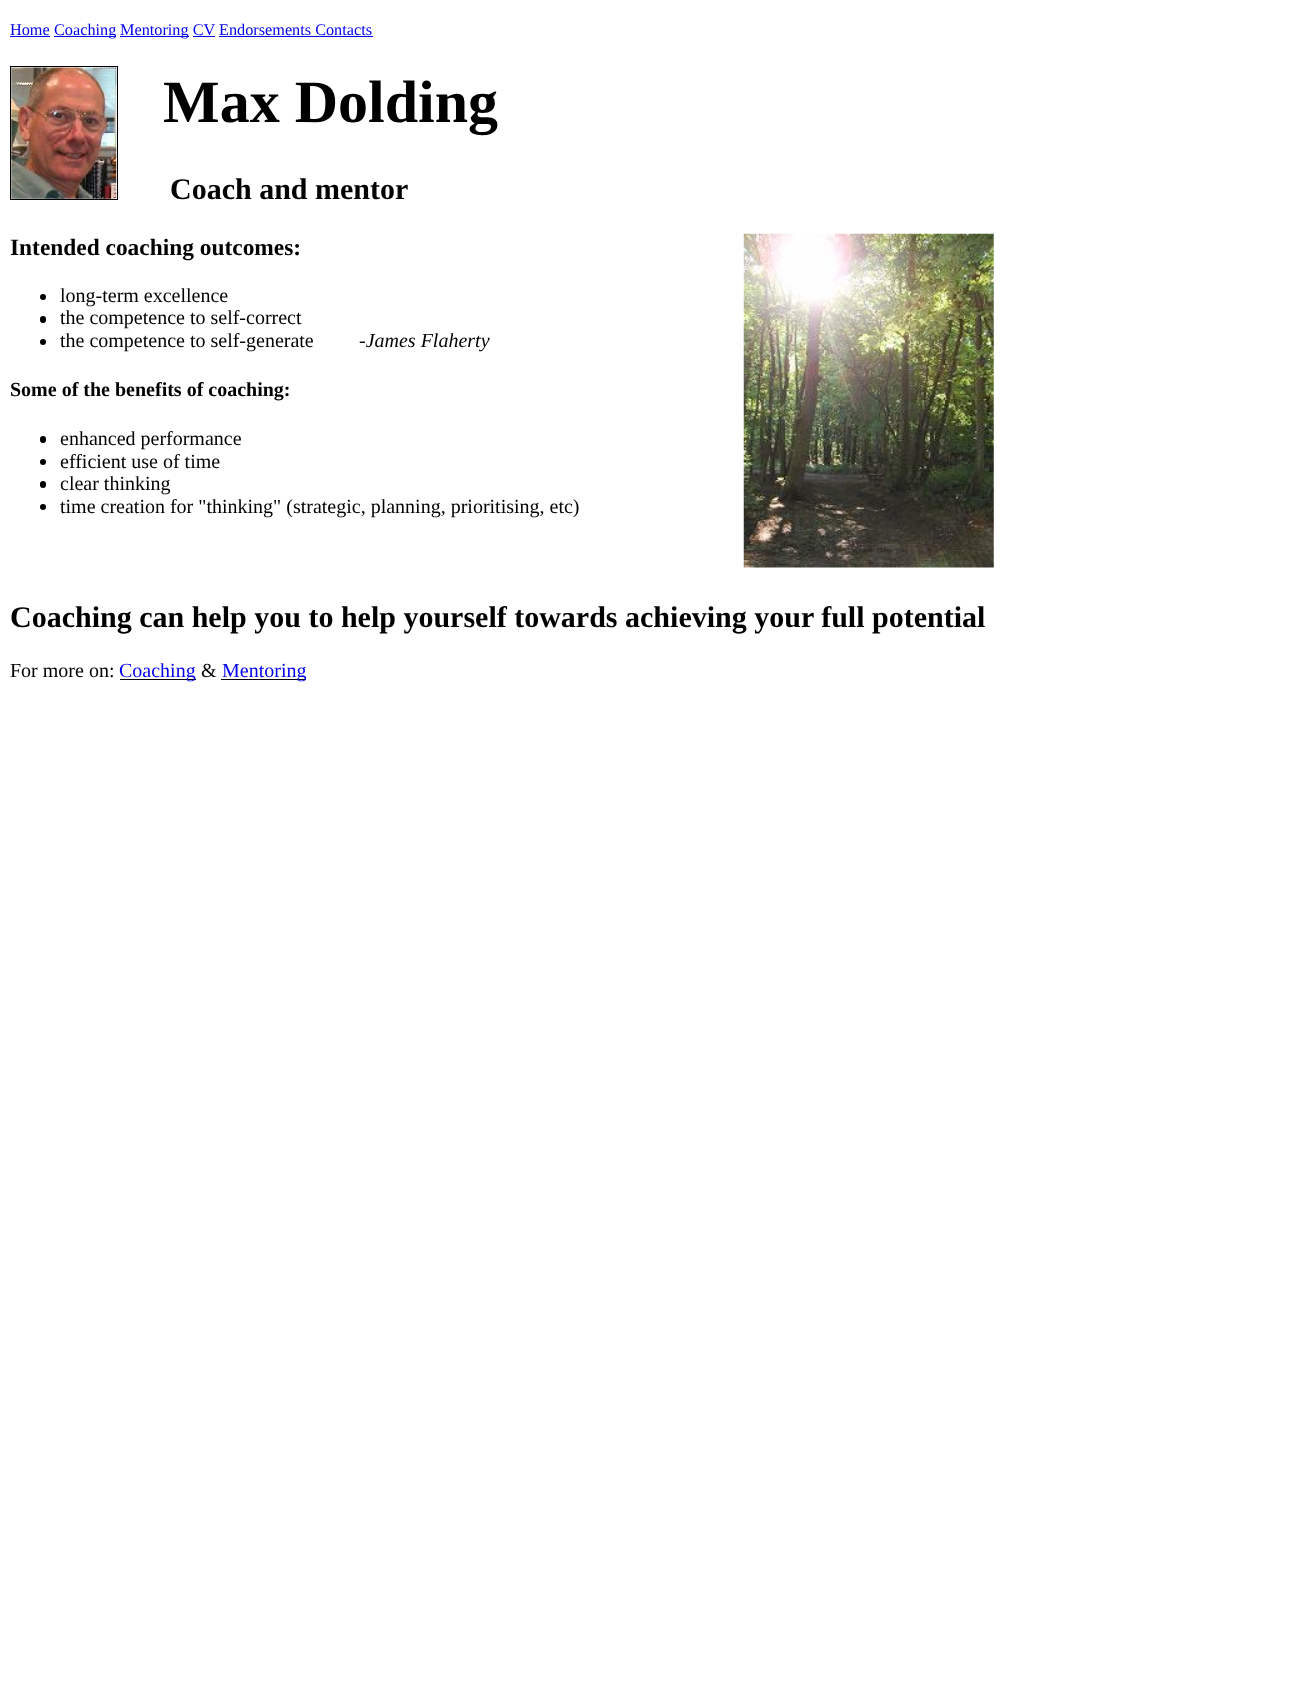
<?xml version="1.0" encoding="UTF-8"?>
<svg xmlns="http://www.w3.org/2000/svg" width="1301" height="1690">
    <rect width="100%" height="100%" fill="#FFFFFF"/>
    <text x="10" y="35" font-family="Liberation Serif" font-size="16.25" fill="#0000EE">Home</text>
    <rect x="10" y="36" width="40" height="1" fill="#0000EE"/>
    <rect x="54" y="36" width="62" height="1" fill="#0000EE"/>
    <text x="54" y="35" font-family="Liberation Serif" font-size="16.25" fill="#0000EE">Coaching</text>
    <rect x="120" y="36" width="69" height="1" fill="#0000EE"/>
    <text x="120" y="35" font-family="Liberation Serif" font-size="16.25" fill="#0000EE">Mentoring CV Endorsements Contacts</text>
    <rect x="193" y="36" width="22" height="1" fill="#0000EE"/>
    <rect x="219" y="36" width="154" height="1" fill="#0000EE"/>
    <rect x="10.5" y="66.5" width="107" height="133" fill="none" stroke="#000000"/>
    <image x="11" y="67" width="106" height="132" href="img_01.png"/>
    <text x="163" y="122" font-family="Liberation Serif" font-size="60" font-weight="700" fill="#000000">Max Dolding</text>
    <text x="170" y="199" font-family="Liberation Serif" font-size="30" font-weight="700" fill="#000000">Coach and mentor</text>
    <text x="10" y="255" font-family="Liberation Serif" font-size="23.4" font-weight="700" fill="#000000">Intended coaching outcomes:</text>
    <image x="743" y="233" width="251" height="335" href="img_02.png"/>
    <circle cx="43" cy="297" r="3" fill="#000000"/>
    <text x="60" y="302" font-family="Liberation Serif" font-size="20" fill="#000000">long-term excellence</text>
    <rect x="40" y="316" width="6" height="7" rx="3" fill="#000000"/>
    <text x="60" y="324" font-family="Liberation Serif" font-size="20" fill="#000000">the competence to self-correct</text>
    <circle cx="43" cy="342" r="3" fill="#000000"/>
    <text x="60" y="347" font-family="Liberation Serif" font-size="20" fill="#000000">the competence to self-generate</text>
    <text x="359" y="347" font-family="Liberation Serif" font-size="20" font-style="italic" fill="#000000">-James Flaherty</text>
    <text x="10" y="396" font-family="Liberation Serif" font-size="20" font-weight="700" fill="#000000">Some of the benefits of coaching:</text>
    <rect x="40" y="436" width="6" height="7" rx="3" fill="#000000"/>
    <text x="60" y="445" font-family="Liberation Serif" font-size="20" fill="#000000">enhanced performance</text>
    <circle cx="43" cy="462" r="3" fill="#000000"/>
    <text x="60" y="468" font-family="Liberation Serif" font-size="20" fill="#000000">efficient use of time</text>
    <rect x="40" y="481" width="6" height="7" rx="3" fill="#000000"/>
    <text x="60" y="490" font-family="Liberation Serif" font-size="20" fill="#000000">clear thinking</text>
    <circle cx="43" cy="507" r="3" fill="#000000"/>
    <text x="60" y="513" font-family="Liberation Serif" font-size="20" fill="#000000">time creation for "thinking" (strategic, planning, prioritising, etc)</text>
    <text x="10" y="627" font-family="Liberation Serif" font-size="30" font-weight="700" fill="#000000">Coaching can help you to help yourself towards achieving your full potential</text>
    <text x="10" y="677" font-family="Liberation Serif" font-size="20" fill="#000000">For more on:</text>
    <rect x="120" y="679" width="76" height="1" fill="#000000"/>
    <text x="119" y="677" font-family="Liberation Serif" font-size="20" fill="#0000EE">Coaching</text>
    <text x="201" y="677" font-family="Liberation Serif" font-size="20" fill="#000000">&amp;</text>
    <rect x="221" y="679" width="85" height="1" fill="#000000"/>
    <text x="222" y="677" font-family="Liberation Serif" font-size="20" fill="#0000EE">Mentoring</text>
</svg>
